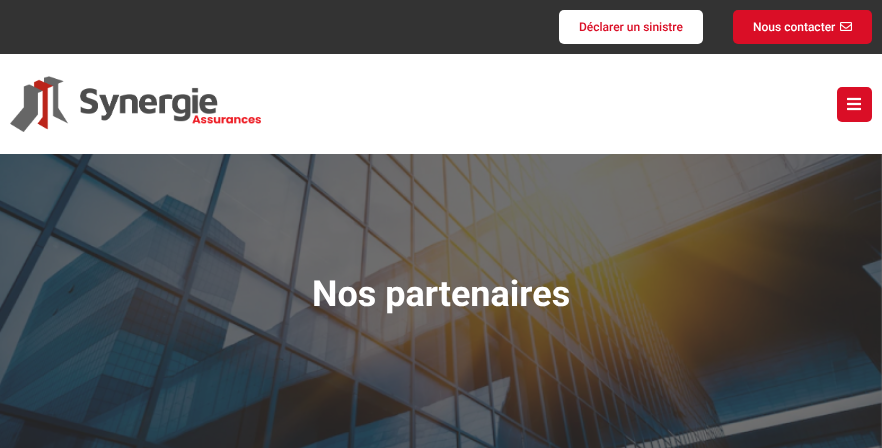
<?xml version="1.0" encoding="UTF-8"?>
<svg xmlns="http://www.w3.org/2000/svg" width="882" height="448">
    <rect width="100%" height="100%" fill="#FFFFFF"/>
    <rect x="0" y="0" width="882" height="54" fill="#333333"/>
    <rect x="559" y="10" width="144" height="34" rx="5" fill="#FFFFFF"/>
    <text x="579" y="31" font-family="Roboto" font-size="12" font-weight="500" fill="#DA0E26">Déclarer un sinistre</text>
    <rect x="733" y="10" width="139" height="34" rx="5" fill="#DA0E26"/>
    <text x="753" y="31" font-family="Roboto" font-size="12" font-weight="500" fill="#FFFFFF">Nous contacter</text>
    <image x="840" y="22" width="12" height="9" href="img_01.png"/>
    <image x="10" y="76" width="251" height="56" href="img_02.png"/>
    <rect x="837" y="87" width="35" height="35" rx="5" fill="#DA0E26"/>
    <image x="847" y="97" width="14" height="14" href="img_03.png"/>
    <image x="0" y="154" width="882" height="294" href="img_04.png"/>
    <text x="312" y="306" font-family="Roboto" font-size="36" font-weight="700" fill="#FFFFFF">Nos partenaires</text>
</svg>
